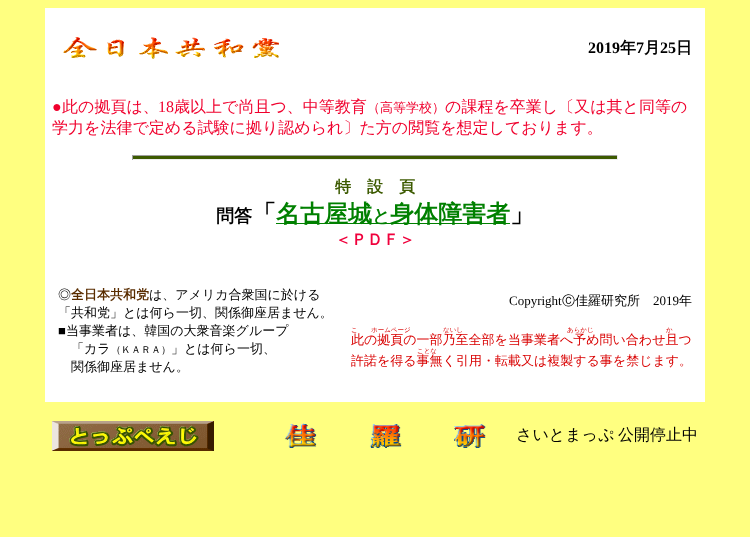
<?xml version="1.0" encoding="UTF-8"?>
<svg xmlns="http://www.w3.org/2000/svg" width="750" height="537">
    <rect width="100%" height="100%" fill="#FFFF80"/>
    <rect x="45" y="8" width="660" height="394" fill="#FFFFFF"/>
    <image x="63" y="37" width="216" height="22" href="img_01.png"/>
    <text x="588" y="53" font-family="Liberation Serif" font-size="16" font-weight="700" fill="#000000">2019</text>
    <text x="620" y="53" font-family="WenQuanYi Zen Hei" font-size="16" font-weight="700" fill="#000000">年</text>
    <text x="636" y="53" font-family="Liberation Serif" font-size="16" font-weight="700" fill="#000000">7</text>
    <text x="644" y="53" font-family="WenQuanYi Zen Hei" font-size="16" font-weight="700" fill="#000000">月</text>
    <text x="660" y="53" font-family="Liberation Serif" font-size="16" font-weight="700" fill="#000000">25</text>
    <text x="676" y="53" font-family="WenQuanYi Zen Hei" font-size="16" font-weight="700" fill="#000000">日</text>
    <text x="52" y="112" font-family="Liberation Serif" font-size="16" fill="#F0002D">●</text>
    <text x="62" y="112" font-family="WenQuanYi Zen Hei" font-size="16" font-weight="500" fill="#F0002D">此の拠頁は、</text>
    <text x="158" y="112" font-family="Liberation Serif" font-size="16" fill="#F0002D">18</text>
    <text x="174" y="112" font-family="WenQuanYi Zen Hei" font-size="16" font-weight="500" fill="#F0002D">歳以上で尚且つ、中等教育</text>
    <text x="367" y="112" font-family="WenQuanYi Zen Hei" font-size="13" font-weight="500" fill="#F0002D">（高等学校）</text>
    <text x="445" y="112" font-family="WenQuanYi Zen Hei" font-size="16" font-weight="500" fill="#F0002D">の課程を卒業し〔又は其と同等の</text>
    <text x="52" y="133" font-family="WenQuanYi Zen Hei" font-size="16" font-weight="500" fill="#F0002D">学力を法律で定める試験に拠り認められ〕た方の閲覧を想定しております。</text>
    <rect x="132" y="156" width="486" height="3" fill="#3C5A00"/>
    <rect x="132" y="155" width="486" height="1" fill="#9F9F9F"/>
    <rect x="617" y="155" width="1" height="5" fill="#EEEEEE"/>
    <rect x="132" y="159" width="486" height="1" fill="#EEEEEE"/>
    <rect x="132" y="155" width="1" height="5" fill="#9F9F9F"/>
    <text x="335" y="192" font-family="WenQuanYi Zen Hei" font-size="16" font-weight="700" fill="#3C5A00">特　設　頁</text>
    <text x="216" y="222" font-family="WenQuanYi Zen Hei" font-size="18" font-weight="700" fill="#000000">問答</text>
    <text x="252" y="222" font-family="WenQuanYi Zen Hei" font-size="24" font-weight="700" fill="#000000">「</text>
    <rect x="276" y="223" width="234" height="1" fill="#008000"/>
    <text x="276" y="222" font-family="WenQuanYi Zen Hei" font-size="24" font-weight="700" fill="#008000">名古屋城</text>
    <text x="372" y="222" font-family="WenQuanYi Zen Hei" font-size="18" font-weight="700" fill="#008000">と</text>
    <text x="390" y="222" font-family="WenQuanYi Zen Hei" font-size="24" font-weight="700" fill="#008000">身体障害者</text>
    <text x="510" y="222" font-family="WenQuanYi Zen Hei" font-size="24" font-weight="700" fill="#000000">」</text>
    <text x="335" y="245" font-family="WenQuanYi Zen Hei" font-size="16" font-weight="700" fill="#F0003C">＜ＰＤＦ＞</text>
    <text x="58" y="299" font-family="WenQuanYi Zen Hei" font-size="13" font-weight="500" fill="#000000">◎</text>
    <text x="71" y="299" font-family="WenQuanYi Zen Hei" font-size="13" font-weight="700" fill="#5A2D00">全日本共和党</text>
    <text x="149" y="299" font-family="WenQuanYi Zen Hei" font-size="13" font-weight="500" fill="#000000">は、アメリカ合衆国に於ける</text>
    <text x="58" y="317" font-family="WenQuanYi Zen Hei" font-size="13" font-weight="500" fill="#000000">「共和党」とは何ら一切、関係御座居ません。</text>
    <text x="58" y="335" font-family="Liberation Serif" font-size="13" fill="#000000">■</text>
    <text x="66" y="335" font-family="WenQuanYi Zen Hei" font-size="13" font-weight="500" fill="#000000">当事業者は、韓国の大衆音楽グループ</text>
    <text x="71" y="353" font-family="WenQuanYi Zen Hei" font-size="13" font-weight="500" fill="#000000">「カラ</text>
    <text x="111" y="353" font-family="WenQuanYi Zen Hei" font-size="10" font-weight="500" fill="#000000">（ＫＡＲＡ）</text>
    <text x="171" y="353" font-family="WenQuanYi Zen Hei" font-size="13" font-weight="500" fill="#000000">」とは何ら一切、</text>
    <text x="71" y="371" font-family="WenQuanYi Zen Hei" font-size="13" font-weight="500" fill="#000000">関係御座居ません。</text>
    <text x="509" y="305" font-family="Liberation Serif" font-size="13" fill="#000000">Copyright</text>
    <text x="562" y="305" font-family="WenQuanYi Zen Hei" font-size="13" font-weight="500" fill="#000000">Ⓒ佳羅研究所</text>
    <text x="653" y="305" font-family="Liberation Serif" font-size="13" fill="#000000">2019</text>
    <text x="679" y="305" font-family="WenQuanYi Zen Hei" font-size="13" font-weight="500" fill="#000000">年</text>
    <text x="351" y="332" font-family="WenQuanYi Zen Hei" font-size="6.5" font-weight="500" fill="#D90000">こ</text>
    <text x="351" y="344" font-family="WenQuanYi Zen Hei" font-size="13" font-weight="500" fill="#D90000">此の拠頁の一部乃至全部を当事業者へ予め問い合わせ且つ</text>
    <text x="371" y="332" font-family="WenQuanYi Zen Hei" font-size="6.5" font-weight="500" fill="#D90000">ホームページ</text>
    <text x="443" y="332" font-family="WenQuanYi Zen Hei" font-size="6.5" font-weight="500" fill="#D90000">ないし</text>
    <text x="567" y="332" font-family="WenQuanYi Zen Hei" font-size="6.5" font-weight="500" fill="#D90000">あらかじ</text>
    <text x="666" y="332" font-family="WenQuanYi Zen Hei" font-size="6.5" font-weight="500" fill="#D90000">か</text>
    <text x="417" y="353" font-family="WenQuanYi Zen Hei" font-size="6.5" font-weight="500" fill="#D90000">ことな</text>
    <text x="351" y="365" font-family="WenQuanYi Zen Hei" font-size="13" font-weight="500" fill="#D90000">許諾を得る事無く引用・転載又は複製する事を禁じます。</text>
    <image x="52" y="421" width="162" height="30" href="img_02.png"/>
    <image x="284" y="423" width="202" height="25" href="img_03.png"/>
    <text x="516" y="440" font-family="WenQuanYi Zen Hei" font-size="16" font-weight="500" fill="#000000">さいとまっぷ</text>
    <text x="618" y="440" font-family="WenQuanYi Zen Hei" font-size="16" font-weight="500" fill="#000000">公開停止中</text>
</svg>
